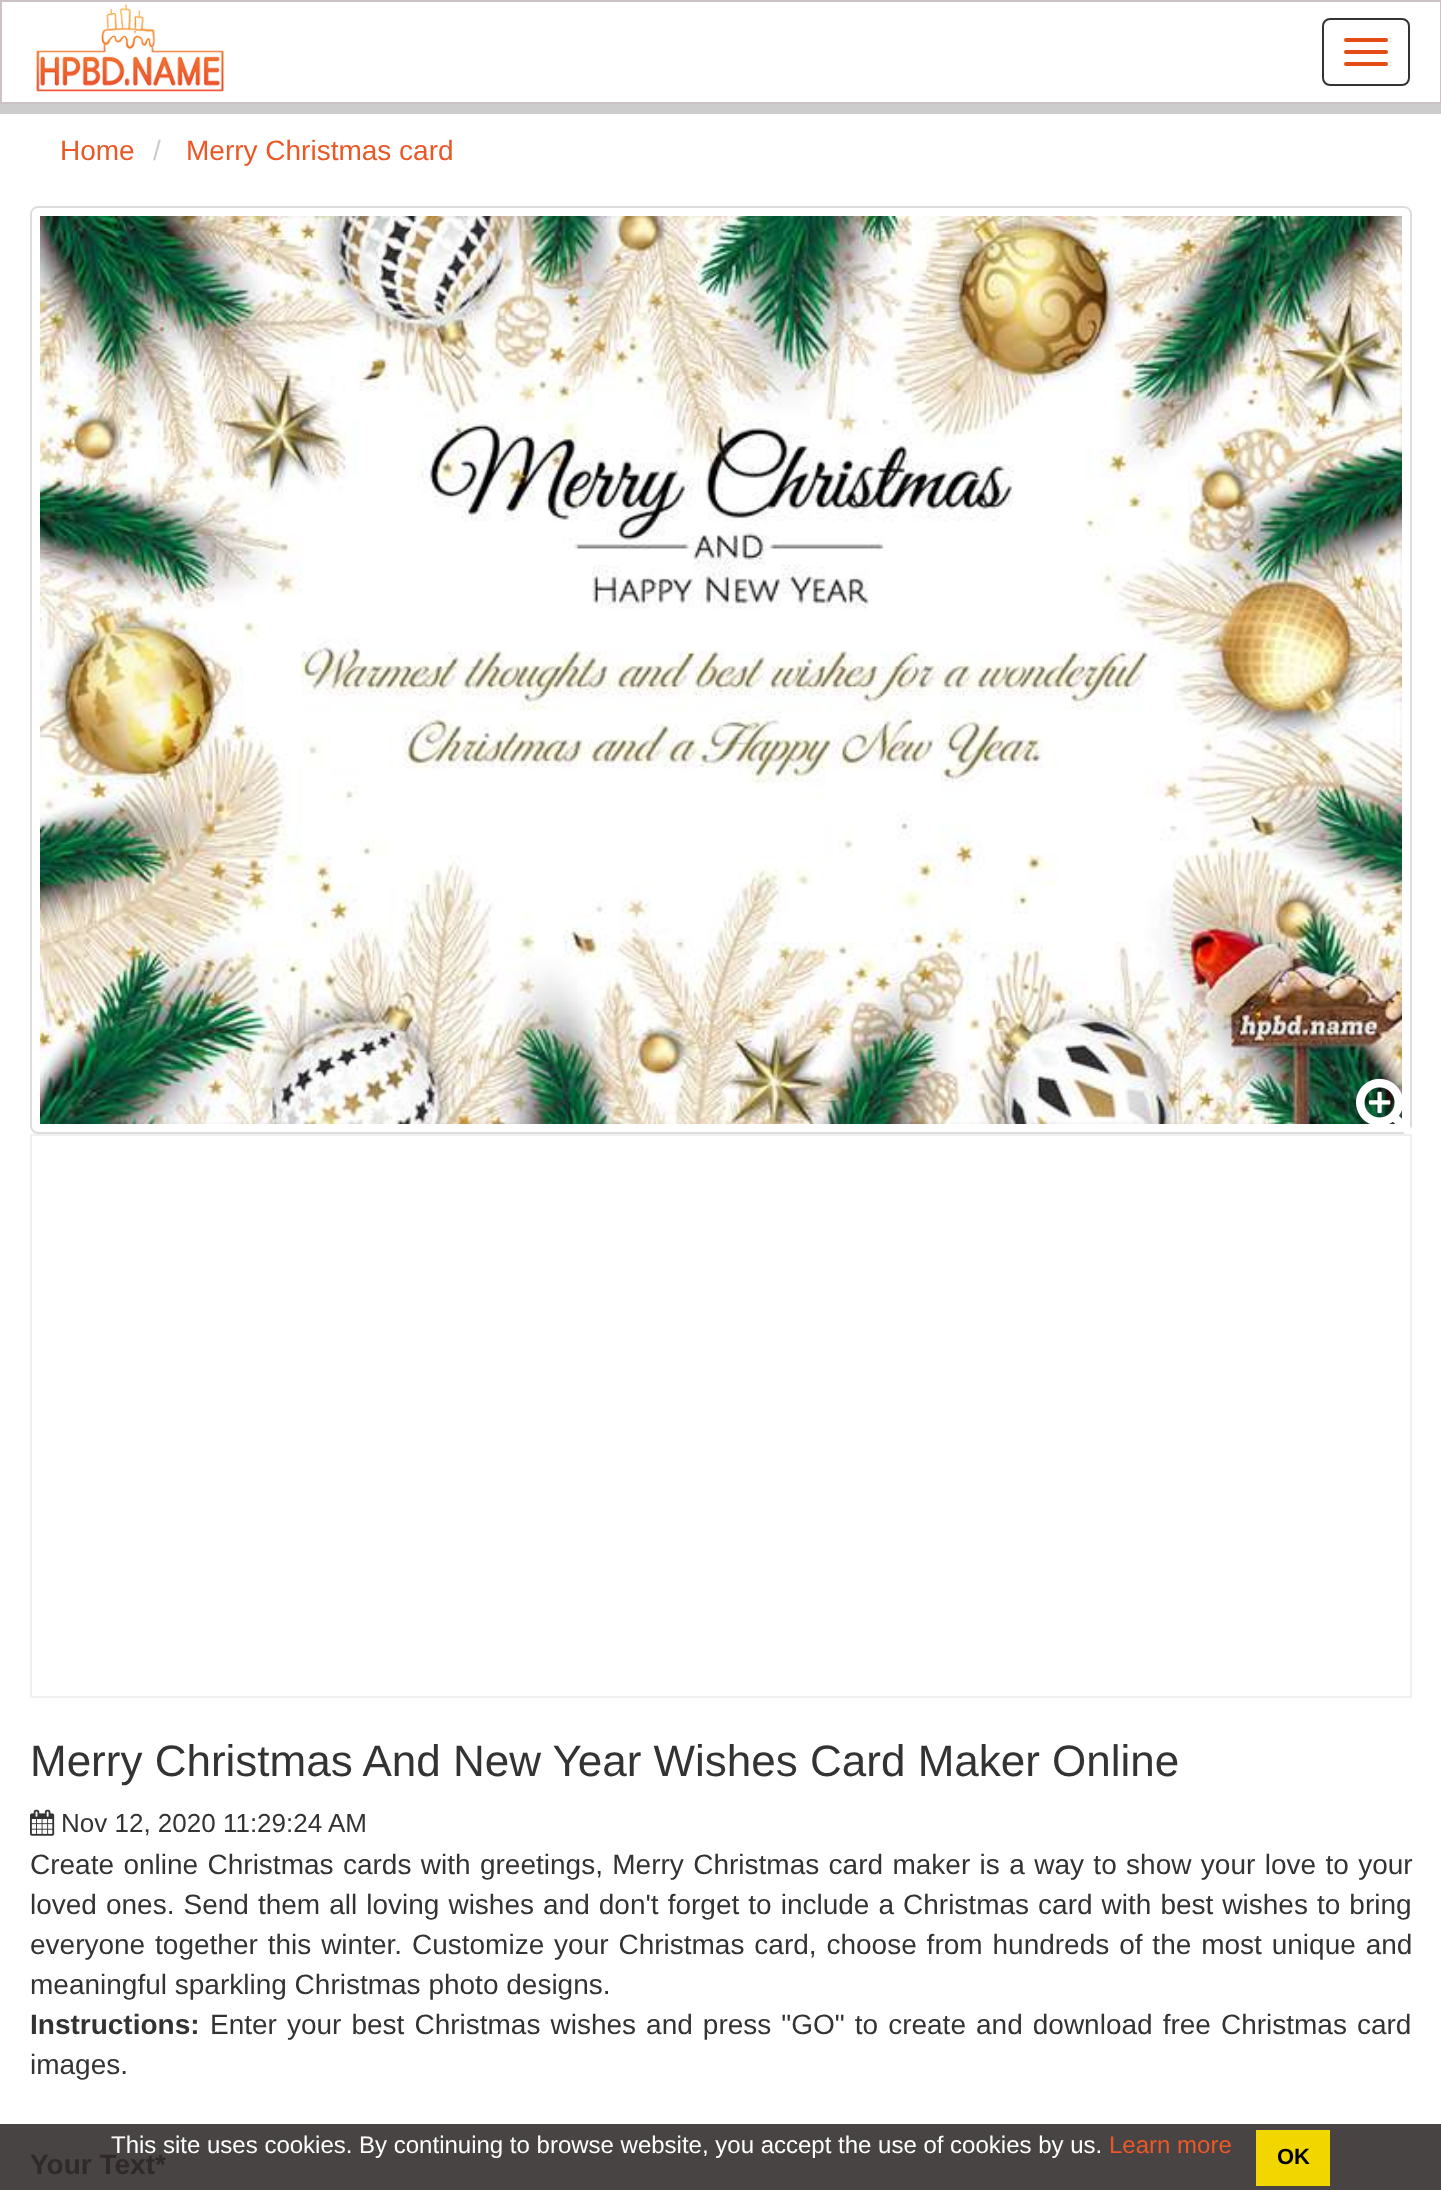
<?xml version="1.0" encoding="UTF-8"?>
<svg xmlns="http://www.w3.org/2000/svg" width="1441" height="2190">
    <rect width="100%" height="100%" fill="#CCCCCC"/>
    <rect x="1" y="1" width="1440" height="102" fill="#FFFFFF" stroke="#CCC1C4" stroke-width="2"/>
    <image x="36" y="3" width="188" height="89" href="img_01.png"/>
    <rect x="1323" y="19" width="86" height="66" rx="7" fill="none" stroke="#333333" stroke-width="2"/>
    <rect x="1344" y="38" width="44" height="4" rx="2" fill="#E54B16"/>
    <rect x="1344" y="50" width="44" height="4" rx="2" fill="#E54B16"/>
    <rect x="1344" y="62" width="44" height="4" rx="2" fill="#E54B16"/>
    <rect x="0" y="114" width="1441" height="2010" fill="#FFFFFF"/>
    <rect x="0" y="2124" width="1441" height="66" fill="#494444"/>
    <text x="60" y="160" font-family="Liberation Sans" font-size="28" fill="#EB5826">Home</text>
    <text x="153" y="160" font-family="Liberation Sans" font-size="28" fill="#CCCCCC">/</text>
    <text x="186" y="160" font-family="Liberation Sans" font-size="28" fill="#EB5826">Merry Christmas card</text>
    <rect x="31" y="207" width="1380" height="926" rx="7" fill="none" stroke="#DDDDDD" stroke-width="2"/>
    <image x="40" y="216" width="1362" height="908" href="img_02.png"/>
    <image x="1356" y="1078" width="56" height="56" href="img_03.png"/>
    <rect x="31" y="1135" width="1380" height="562" fill="none" stroke="#F0F0EF" stroke-width="2"/>
    <text x="30" y="1776" font-family="Liberation Sans" font-size="44" fill="#333333">Merry Christmas And New Year Wishes Card Maker Online</text>
    <image x="30" y="1809" width="25" height="27" href="img_04.png"/>
    <text x="61" y="1832" font-family="Liberation Sans" font-size="26" fill="#333333">Nov 12, 2020 11:29:24 AM</text>
    <text font-family="Liberation Sans" font-size="28" fill="#333333">
        <tspan x="30" y="1874" word-spacing="1.6">Create online Christmas cards with greetings, Merry Christmas card maker is a way to show your love to your</tspan>
        <tspan x="30" y="1914" word-spacing="1.25">loved ones. Send them all loving wishes and don't forget to include a Christmas card with best wishes to bring</tspan>
        <tspan x="30" y="1954" word-spacing="2.1">everyone together this winter. Customize your Christmas card, choose from hundreds of the most unique and</tspan>
        <tspan x="30" y="1994">meaningful sparkling Christmas photo designs.</tspan>
    </text>
    <text x="30" y="2034" font-family="Liberation Sans" font-size="28" font-weight="700" fill="#333333">Instructions:</text>
    <text x="210" y="2034" word-spacing="2.25" font-family="Liberation Sans" font-size="28" fill="#333333">Enter your best Christmas wishes and press "GO" to create and download free Christmas card</text>
    <text x="30" y="2074" font-family="Liberation Sans" font-size="28" fill="#333333">images.</text>
    <text x="30" y="2174" font-family="Liberation Sans" font-size="28" font-weight="700" fill="#2F2929">Your Text*</text>
    <text x="111" y="2153" font-family="Liberation Sans" font-size="24" fill="#FFFFFF">This site uses cookies. By continuing to browse website, you accept the use of cookies by us.</text>
    <text x="1109" y="2153" font-family="Liberation Sans" font-size="24" fill="#EB5826">Learn more</text>
    <rect x="1256" y="2130" width="74" height="56" fill="#F1D600"/>
    <text x="1277" y="2164" font-family="Liberation Sans" font-size="22" font-weight="700" fill="#000000">OK</text>
</svg>
